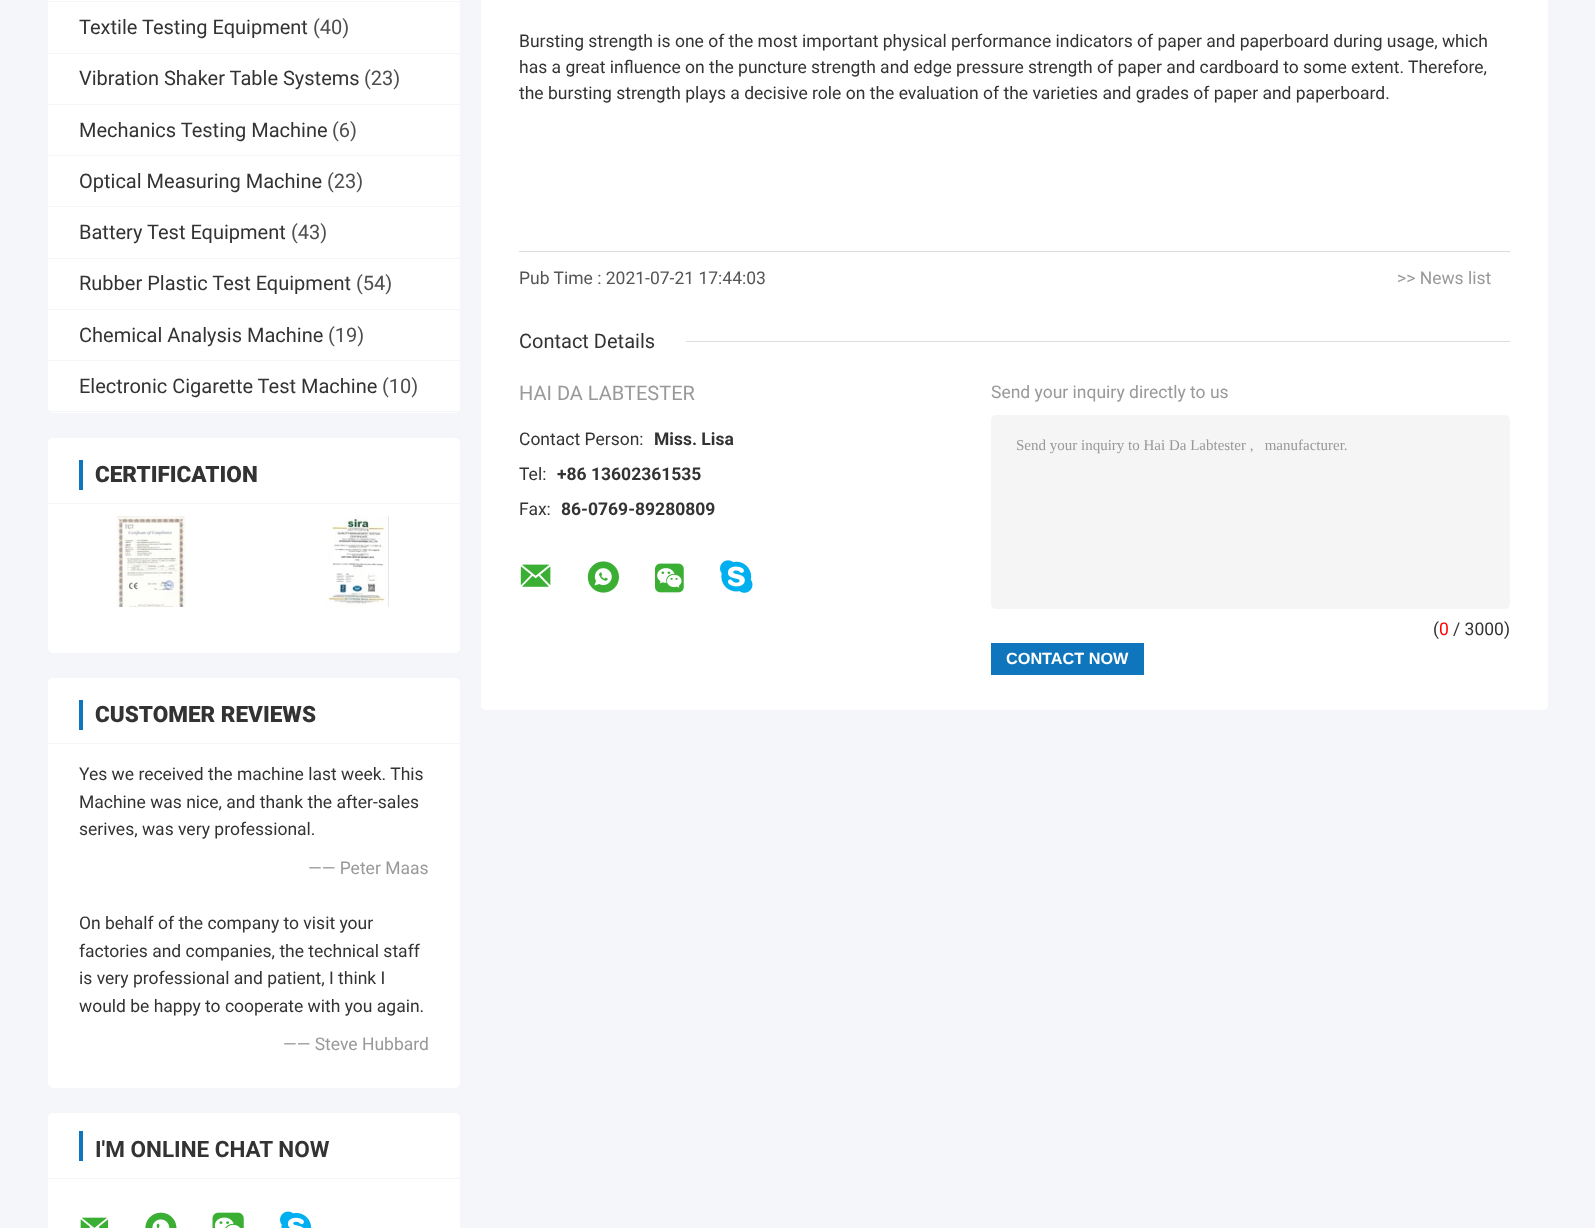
<?xml version="1.0" encoding="UTF-8"?>
<svg xmlns="http://www.w3.org/2000/svg" width="1595" height="1228">
    <rect width="100%" height="100%" fill="#F4F6F9"/>
    <rect x="48" y="-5" width="412" height="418" rx="5" fill="#FFFFFF"/>
    <rect x="48" y="1" width="412" height="1" fill="#F5F5F5"/>
    <rect x="48" y="53" width="412" height="1" fill="#F5F5F5"/>
    <text x="79" y="34" font-family="Roboto" font-size="20" fill="#333333">Textile Testing Equipment</text>
    <text x="313" y="34" font-family="Roboto" font-size="20" fill="#4E4E4E">(40)</text>
    <rect x="48" y="104" width="412" height="1" fill="#F5F5F5"/>
    <text x="79" y="85" font-family="Roboto" font-size="20" fill="#333333">Vibration Shaker Table Systems</text>
    <text x="364" y="85" font-family="Roboto" font-size="20" fill="#4E4E4E">(23)</text>
    <rect x="48" y="155" width="412" height="1" fill="#F5F5F5"/>
    <text x="79" y="137" font-family="Roboto" font-size="20" fill="#333333">Mechanics Testing Machine</text>
    <text x="332" y="137" font-family="Roboto" font-size="20" fill="#4E4E4E">(6)</text>
    <rect x="48" y="206" width="412" height="1" fill="#F5F5F5"/>
    <text x="79" y="188" font-family="Roboto" font-size="20" fill="#333333">Optical Measuring Machine</text>
    <text x="327" y="188" font-family="Roboto" font-size="20" fill="#4E4E4E">(23)</text>
    <rect x="48" y="258" width="412" height="1" fill="#F5F5F5"/>
    <text x="79" y="239" font-family="Roboto" font-size="20" fill="#333333">Battery Test Equipment</text>
    <text x="291" y="239" font-family="Roboto" font-size="20" fill="#4E4E4E">(43)</text>
    <rect x="48" y="309" width="412" height="1" fill="#F5F5F5"/>
    <text x="79" y="290" font-family="Roboto" font-size="20" fill="#333333">Rubber Plastic Test Equipment</text>
    <text x="356" y="290" font-family="Roboto" font-size="20" fill="#4E4E4E">(54)</text>
    <rect x="48" y="360" width="412" height="1" fill="#F5F5F5"/>
    <text x="79" y="342" font-family="Roboto" font-size="20" fill="#333333">Chemical Analysis Machine</text>
    <text x="328" y="342" font-family="Roboto" font-size="20" fill="#4E4E4E">(19)</text>
    <rect x="48" y="411" width="412" height="1" fill="#F5F5F5"/>
    <text x="79" y="393" font-family="Roboto" font-size="20" fill="#333333">Electronic Cigarette Test Machine</text>
    <text x="382" y="393" font-family="Roboto" font-size="20" fill="#4E4E4E">(10)</text>
    <rect x="48" y="438" width="412" height="215" rx="5" fill="#FFFFFF"/>
    <rect x="48" y="503" width="412" height="1" fill="#F5F5F5"/>
    <rect x="79" y="460" width="4" height="30" fill="#0F75BD"/>
    <text x="95" y="482" font-family="Roboto" font-size="22.5" font-weight="900" fill="#333333">CERTIFICATION</text>
    <image x="116" y="516" width="70" height="91" href="img_01.png"/>
    <image x="325" y="516" width="64" height="91" href="img_02.png"/>
    <rect x="48" y="678" width="412" height="410" rx="5" fill="#FFFFFF"/>
    <rect x="48" y="743" width="412" height="1" fill="#F5F5F5"/>
    <rect x="79" y="700" width="4" height="30" fill="#0F75BD"/>
    <text x="95" y="722" font-family="Roboto" font-size="22.5" font-weight="900" fill="#333333">CUSTOMER REVIEWS</text>
    <text font-family="Roboto" font-size="17.5" fill="#333333">
        <tspan x="79" y="780">Yes we received the machine last week. This</tspan>
        <tspan x="79" y="808">Machine was nice, and thank the after-sales</tspan>
        <tspan x="79" y="835">serives, was very professional.</tspan>
    </text>
    <text x="308" y="874" font-family="Roboto" font-size="17.5" fill="#999999">—— Peter Maas</text>
    <text font-family="Roboto" font-size="17.5" fill="#333333">
        <tspan x="79" y="929">On behalf of the company to visit your</tspan>
        <tspan x="79" y="957">factories and companies, the technical staff</tspan>
        <tspan x="79" y="984">is very professional and patient, I think I</tspan>
        <tspan x="79" y="1012">would be happy to cooperate with you again.</tspan>
    </text>
    <text x="283" y="1050" font-family="Roboto" font-size="17.5" fill="#999999">—— Steve Hubbard</text>
    <rect x="48" y="1113" width="412" height="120" rx="5" fill="#FFFFFF"/>
    <rect x="48" y="1178" width="412" height="1" fill="#F5F5F5"/>
    <rect x="79" y="1131" width="4" height="30" fill="#0F75BD"/>
    <text x="95" y="1157" font-family="Roboto" font-size="22.5" font-weight="700" fill="#333333">I'M ONLINE CHAT NOW</text>
    <image x="80" y="1217" width="29" height="11" href="img_03.png"/>
    <image x="145" y="1212" width="32" height="16" href="img_04.png"/>
    <image x="212" y="1212" width="32" height="16" href="img_05.png"/>
    <image x="280" y="1211" width="32" height="17" href="img_06.png"/>
    <rect x="481" y="-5" width="1067" height="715" rx="5" fill="#FFFFFF"/>
    <text font-family="Roboto" font-size="17.5" fill="#333333">
        <tspan x="519" y="47">Bursting strength is one of the most important physical performance indicators of paper and paperboard during usage, which</tspan>
        <tspan x="519" y="73">has a great influence on the puncture strength and edge pressure strength of paper and cardboard to some extent. Therefore,</tspan>
        <tspan x="519" y="99">the bursting strength plays a decisive role on the evaluation of the varieties and grades of paper and paperboard.</tspan>
    </text>
    <rect x="519" y="251" width="991" height="1" fill="#DCDCDC"/>
    <text x="519" y="284" font-family="Roboto" font-size="17.5" fill="#555555">Pub Time : 2021-07-21 17:44:03</text>
    <text x="1397" y="284" font-family="Roboto" font-size="17.5" fill="#999999">&gt;&gt; News list</text>
    <text x="519" y="348" font-family="Roboto" font-size="20" fill="#333333">Contact Details</text>
    <rect x="686" y="341" width="824" height="1" fill="#DDDDDD"/>
    <text x="519" y="400" font-family="Roboto" font-size="20" fill="#999999">HAI DA LABTESTER</text>
    <text x="519" y="445" font-family="Roboto" font-size="17.5" fill="#333333">Contact Person:</text>
    <text x="654" y="445" font-family="Roboto" font-size="17.5" font-weight="700" fill="#333333">Miss. Lisa</text>
    <text x="519" y="480" font-family="Roboto" font-size="17.5" fill="#333333">Tel:</text>
    <text x="557" y="480" font-family="Roboto" font-size="17.5" font-weight="700" fill="#333333">+86 13602361535</text>
    <text x="519" y="515" font-family="Roboto" font-size="17.5" fill="#333333">Fax:</text>
    <text x="561" y="515" font-family="Roboto" font-size="17.5" font-weight="700" fill="#333333">86-0769-89280809</text>
    <image x="520" y="564" width="31" height="23" href="img_07.png"/>
    <image x="587" y="561" width="32" height="32" href="img_08.png"/>
    <image x="655" y="563" width="29" height="30" href="img_09.png"/>
    <image x="720" y="560" width="33" height="33" href="img_10.png"/>
    <text x="991" y="398" font-family="Roboto" font-size="17.5" fill="#999999">Send your inquiry directly to us</text>
    <rect x="991" y="415" width="519" height="194" rx="5" fill="#F5F5F5"/>
    <text x="1016" y="450" font-family="Liberation Serif" font-size="15" fill="#999999" xml:space="preserve">Send your inquiry to Hai Da Labtester ,   manufacturer.</text>
    <text x="1433" y="635" font-family="Roboto" font-size="17.5" fill="#333333">(</text>
    <text x="1439" y="635" font-family="Roboto" font-size="17.5" fill="#FF0000">0</text>
    <text x="1453" y="635" font-family="Roboto" font-size="17.5" fill="#333333">/ 3000)</text>
    <rect x="991" y="643" width="153" height="32" fill="#0F75BD"/>
    <text x="1006" y="664" font-family="Liberation Sans" font-size="16.25" font-weight="700" fill="#FFFFFF">CONTACT NOW</text>
</svg>
